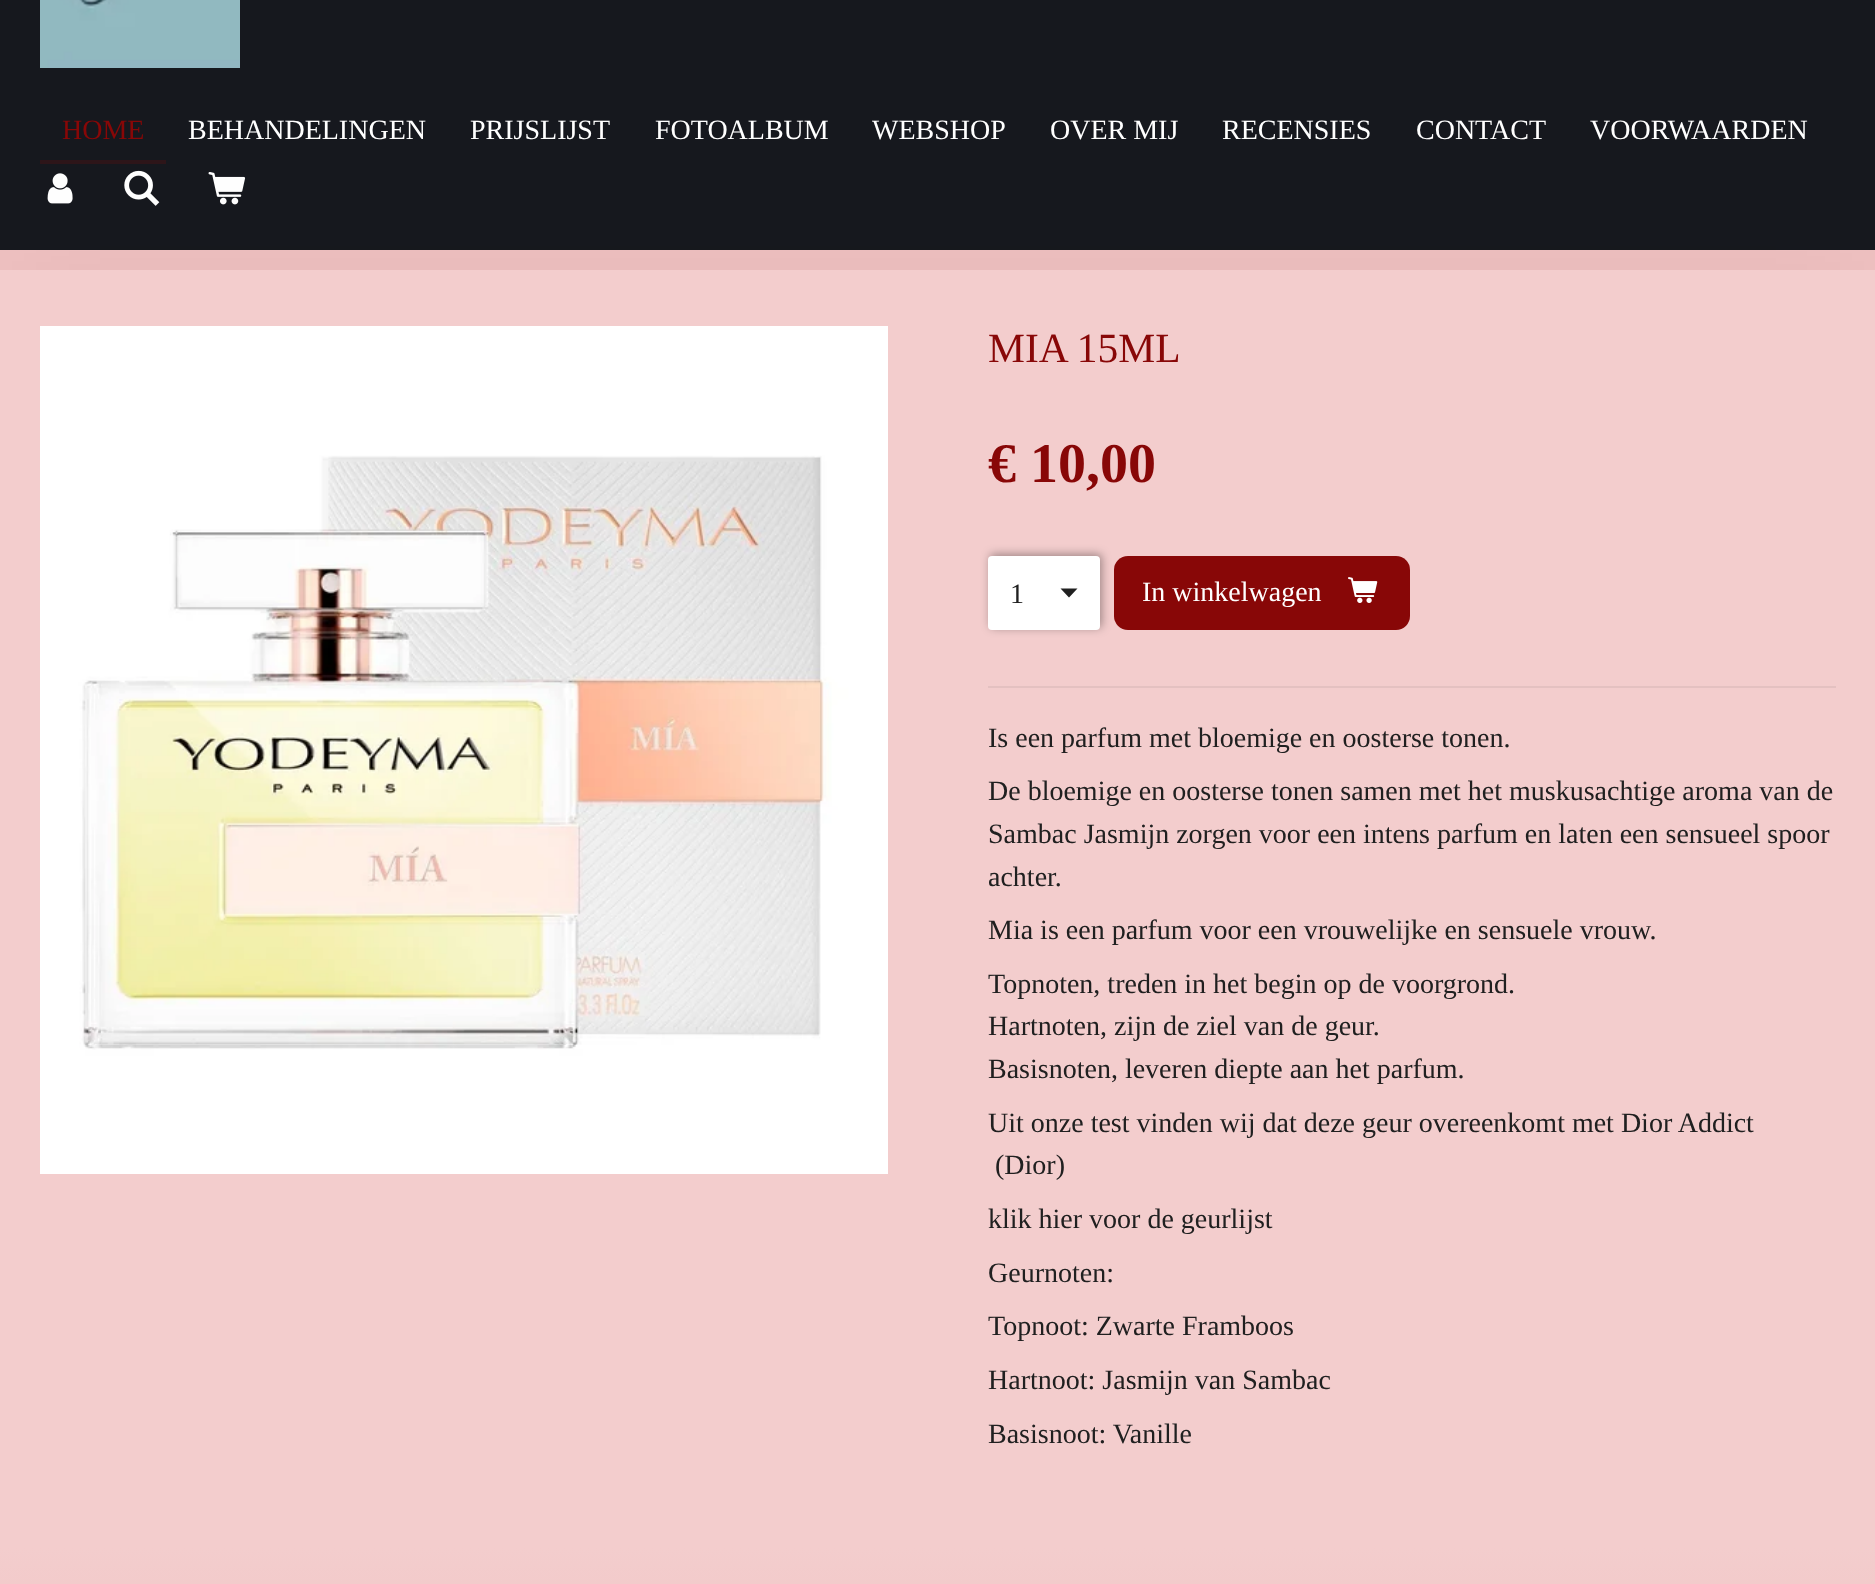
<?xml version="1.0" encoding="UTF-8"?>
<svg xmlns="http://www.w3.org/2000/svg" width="1875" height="1584">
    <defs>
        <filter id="blur1" x="-50%" y="-200%" width="200%" height="500%"><feGaussianBlur stdDeviation="60"/></filter>
        <filter id="blur2" x="-50%" y="-200%" width="200%" height="500%"><feGaussianBlur stdDeviation="5"/></filter>
        <linearGradient id="g1" gradientUnits="userSpaceOnUse" x1="938" y1="1548" x2="938" y2="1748"><stop offset="0" stop-color="#F3CDCD"/><stop offset="1" stop-color="#F0C1C1"/></linearGradient>
    </defs>
    <rect width="100%" height="100%" fill="#F0C1C1"/>
    <rect x="0" y="0" width="1875" height="250" fill="#16181E"/>
    <image x="40" y="0" width="200" height="68" href="img_01.png"/>
    <rect x="40" y="160" width="126" height="4" fill="#2D1519"/>
    <text x="62" y="139" font-family="Liberation Serif" font-size="28" fill="#880707">HOME</text>
    <text x="188" y="139" font-family="Liberation Serif" font-size="28" fill="#FFFFFF">BEHANDELINGEN</text>
    <text x="470" y="139" font-family="Liberation Serif" font-size="28" fill="#FFFFFF">PRIJSLIJST</text>
    <text x="655" y="139" font-family="Liberation Serif" font-size="28" fill="#FFFFFF">FOTOALBUM</text>
    <text x="872" y="139" font-family="Liberation Serif" font-size="28" fill="#FFFFFF">WEBSHOP</text>
    <text x="1050" y="139" font-family="Liberation Serif" font-size="28" fill="#FFFFFF">OVER MIJ</text>
    <text x="1222" y="139" font-family="Liberation Serif" font-size="28" fill="#FFFFFF">RECENSIES</text>
    <text x="1416" y="139" font-family="Liberation Serif" font-size="28" fill="#FFFFFF">CONTACT</text>
    <text x="1590" y="139" font-family="Liberation Serif" font-size="28" fill="#FFFFFF">VOORWAARDEN</text>
    <image x="47" y="173" width="26" height="31" href="img_02.png"/>
    <image x="124" y="170" width="36" height="36" href="img_03.png"/>
    <image x="208" y="172" width="38" height="33" href="img_04.png"/>
    <rect x="0" y="270" width="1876" height="1298" fill="#000000" fill-opacity="0.05" filter="url(#blur1)"/>
    <rect x="0" y="270" width="1875" height="1278" fill="#F3CDCD"/>
    <image x="40" y="326" width="848" height="848" href="img_05.png"/>
    <text x="988" y="362" font-family="Liberation Serif" font-size="41.5" fill="#880707">MIA 15ML</text>
    <text x="988" y="482" font-family="Liberation Serif" font-size="56" font-weight="700" fill="#880707">€ 10,00</text>
    <rect x="990" y="554" width="112" height="74" rx="4" fill="#000000" fill-opacity="0.35" filter="url(#blur2)"/>
    <rect x="988" y="556" width="112" height="74" rx="4" fill="#FFFFFF"/>
    <path d="M 1069 597.5 L 1060.5 588.5 H 1077.5 Z" fill="#202020"/>
    <text x="1010" y="603" font-family="Liberation Serif" font-size="28" fill="#202020">1</text>
    <rect x="1114" y="556" width="296" height="74" rx="14" fill="#880707"/>
    <text x="1142" y="601" font-family="Liberation Serif" font-size="28" fill="#FFFFFF">In winkelwagen</text>
    <image x="1348" y="577" width="30" height="26" href="img_06.png"/>
    <rect x="988" y="686" width="848" height="2" fill="#E4C1C1"/>
    <text font-family="Liberation Serif" font-size="28" fill="#202020">
        <tspan x="988" y="747">Is een parfum met bloemige en oosterse tonen.</tspan>
        <tspan x="988" y="800">De bloemige en oosterse tonen samen met het muskusachtige aroma van de</tspan>
        <tspan x="988" y="843">Sambac Jasmijn zorgen voor een intens parfum en laten een sensueel spoor</tspan>
        <tspan x="988" y="886">achter.</tspan>
        <tspan x="988" y="939">Mia is een parfum voor een vrouwelijke en sensuele vrouw.</tspan>
        <tspan x="988" y="993">Topnoten, treden in het begin op de voorgrond.</tspan>
        <tspan x="988" y="1035">Hartnoten, zijn de ziel van de geur.</tspan>
        <tspan x="988" y="1078">Basisnoten, leveren diepte aan het parfum.</tspan>
        <tspan x="988" y="1132">Uit onze test vinden wij dat deze geur overeenkomt met Dior Addict</tspan>
    </text>
    <text x="995" y="1174" font-family="Liberation Serif" font-size="28" fill="#202020">(Dior)</text>
    <text font-family="Liberation Serif" font-size="28" fill="#202020">
        <tspan x="988" y="1228">klik hier voor de geurlijst</tspan>
        <tspan x="988" y="1282">Geurnoten:</tspan>
        <tspan x="988" y="1335">Topnoot: Zwarte Framboos</tspan>
        <tspan x="988" y="1389">Hartnoot: Jasmijn van Sambac</tspan>
        <tspan x="988" y="1443">Basisnoot: Vanille</tspan>
    </text>
    <rect x="0" y="1548" width="1875" height="36" fill="url(#g1)"/>
</svg>
